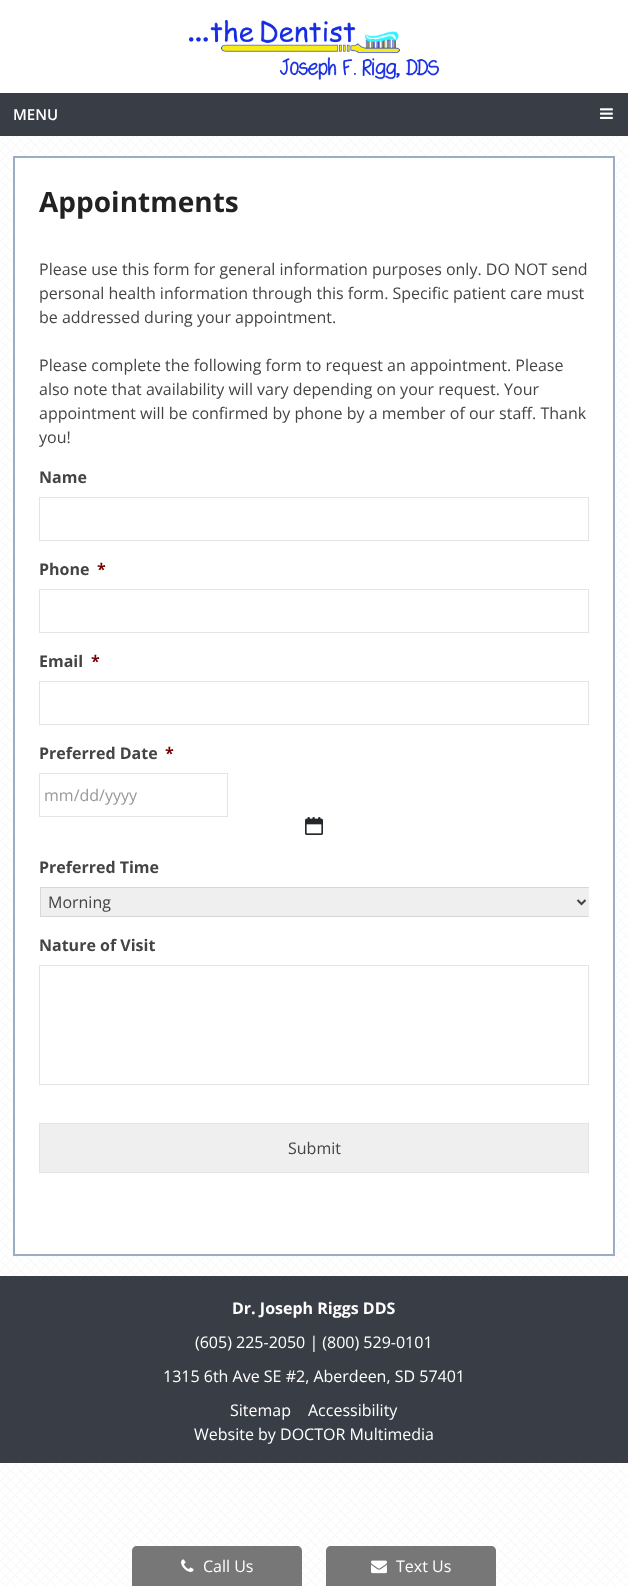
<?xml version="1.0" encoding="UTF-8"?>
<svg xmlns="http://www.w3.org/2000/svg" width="628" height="1586">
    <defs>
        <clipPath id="clip1"><rect x="39" y="241" width="550" height="974"/></clipPath>
    </defs>
    <rect width="100%" height="100%" fill="#FFFFFF"/>
    <image x="0" y="136" width="628" height="1450" href="img_01.png"/>
    <image x="189" y="20" width="250" height="60" href="img_02.png"/>
    <rect x="0" y="93" width="628" height="43" fill="#393D45"/>
    <text x="13" y="120" font-family="Open Sans" font-size="15" font-weight="600" fill="#FFFFFF">MENU</text>
    <image x="600" y="108" width="13" height="11" href="img_03.png"/>
    <rect x="14" y="157" width="600" height="1098" fill="#FFFFFF" stroke="#9AADC2" stroke-width="2"/>
    <text x="39" y="212" font-family="Open Sans" font-size="28" font-weight="700" fill="#222222">Appointments</text>
    <text font-family="Open Sans" font-size="16" fill="#444444">
        <tspan x="39" y="275">Please use this form for general information purposes only. DO NOT send</tspan>
        <tspan x="39" y="299">personal health information through this form. Specific patient care must</tspan>
        <tspan x="39" y="323">be addressed during your appointment.</tspan>
    </text>
    <text font-family="Open Sans" font-size="16" fill="#444444">
        <tspan x="39" y="371">Please complete the following form to request an appointment. Please</tspan>
        <tspan x="39" y="395">also note that availability will vary depending on your request. Your</tspan>
        <tspan x="39" y="419">appointment will be confirmed by phone by a member of our staff. Thank</tspan>
    </text>
    <g clip-path="url(#clip1)">
        <text x="39" y="443" font-family="Open Sans" font-size="16" fill="#444444">you!</text>
    </g>
    <text x="39" y="483" font-family="Open Sans" font-size="16" font-weight="700" fill="#444444">Name</text>
    <rect x="39.5" y="497.5" width="549" height="43" fill="none" stroke="#E4E4E4"/>
    <text x="39" y="575" font-family="Open Sans" font-size="16" font-weight="700" fill="#444444">Phone</text>
    <text x="97" y="575" font-family="Open Sans" font-size="16" font-weight="700" fill="#790000">*</text>
    <rect x="39.5" y="589.5" width="549" height="43" fill="none" stroke="#E4E4E4"/>
    <text x="39" y="667" font-family="Open Sans" font-size="16" font-weight="700" fill="#444444">Email</text>
    <text x="91" y="667" font-family="Open Sans" font-size="16" font-weight="700" fill="#790000">*</text>
    <rect x="39.5" y="681.5" width="549" height="43" fill="none" stroke="#E4E4E4"/>
    <text x="39" y="759" font-family="Open Sans" font-size="16" font-weight="700" fill="#444444">Preferred Date</text>
    <text x="165" y="759" font-family="Open Sans" font-size="16" font-weight="700" fill="#790000">*</text>
    <rect x="39.5" y="773.5" width="188" height="43" fill="none" stroke="#E4E4E4"/>
    <text x="44" y="801" font-family="Open Sans" font-size="16" fill="#999999">mm/dd/yyyy</text>
    <image x="305" y="817" width="18" height="18" href="img_04.png"/>
    <text x="39" y="873" font-family="Open Sans" font-size="16" font-weight="700" fill="#444444">Preferred Time</text>
    <rect x="41" y="888" width="548" height="28" fill="#EFEFEF"/>
    <g clip-path="url(#clip1)">
        <rect x="40.5" y="887.5" width="549" height="29" fill="none" stroke="#D8D8D8"/>
    </g>
    <path d="M 577.5 900 L 581.5 904 L 585.5 900" fill="none" stroke="#444444" stroke-width="2"/>
    <text x="48" y="908" font-family="Open Sans" font-size="16" fill="#444444">Morning</text>
    <text x="39" y="951" font-family="Open Sans" font-size="16" font-weight="700" fill="#444444">Nature of Visit</text>
    <rect x="39.5" y="965.5" width="549" height="119" fill="none" stroke="#E4E4E4"/>
    <rect x="39.5" y="1123.5" width="549" height="49" fill="#EFEFEF" stroke="#E4E4E4"/>
    <text x="288" y="1154" font-family="Open Sans" font-size="16" fill="#444444">Submit</text>
    <rect x="0" y="1276" width="628" height="187" fill="#393D45"/>
    <text x="232" y="1314" font-family="Open Sans" font-size="16" font-weight="700" fill="#FFFFFF">Dr. Joseph Riggs DDS</text>
    <text x="195" y="1348" font-family="Open Sans" font-size="16" fill="#FFFFFF">(605) 225-2050 | (800) 529-0101</text>
    <text x="163" y="1382" font-family="Open Sans" font-size="16" fill="#FFFFFF">1315 6th Ave SE #2, Aberdeen, SD 57401</text>
    <text x="230" y="1416" font-family="Open Sans" font-size="16" fill="#FFFFFF">Sitemap</text>
    <text x="308" y="1416" font-family="Open Sans" font-size="16" fill="#FFFFFF">Accessibility</text>
    <text x="194" y="1440" font-family="Open Sans" font-size="16" fill="#FFFFFF">Website by DOCTOR Multimedia</text>
    <path d="M 137 1546 H 297 C 300 1546 302 1548 302 1551 V 1586 H 132 V 1551 C 132 1548 134 1546 137 1546 Z" fill="#777777"/>
    <image x="181" y="1559" width="13" height="13" href="img_05.png"/>
    <text x="203" y="1572" font-family="Open Sans" font-size="16" fill="#FFFFFF">Call Us</text>
    <path d="M 331 1546 H 491 C 494 1546 496 1548 496 1551 V 1586 H 326 V 1551 C 326 1548 328 1546 331 1546 Z" fill="#777777"/>
    <image x="371" y="1560" width="16" height="14" href="img_06.png"/>
    <text x="396" y="1572" font-family="Open Sans" font-size="16" fill="#FFFFFF">Text Us</text>
</svg>
